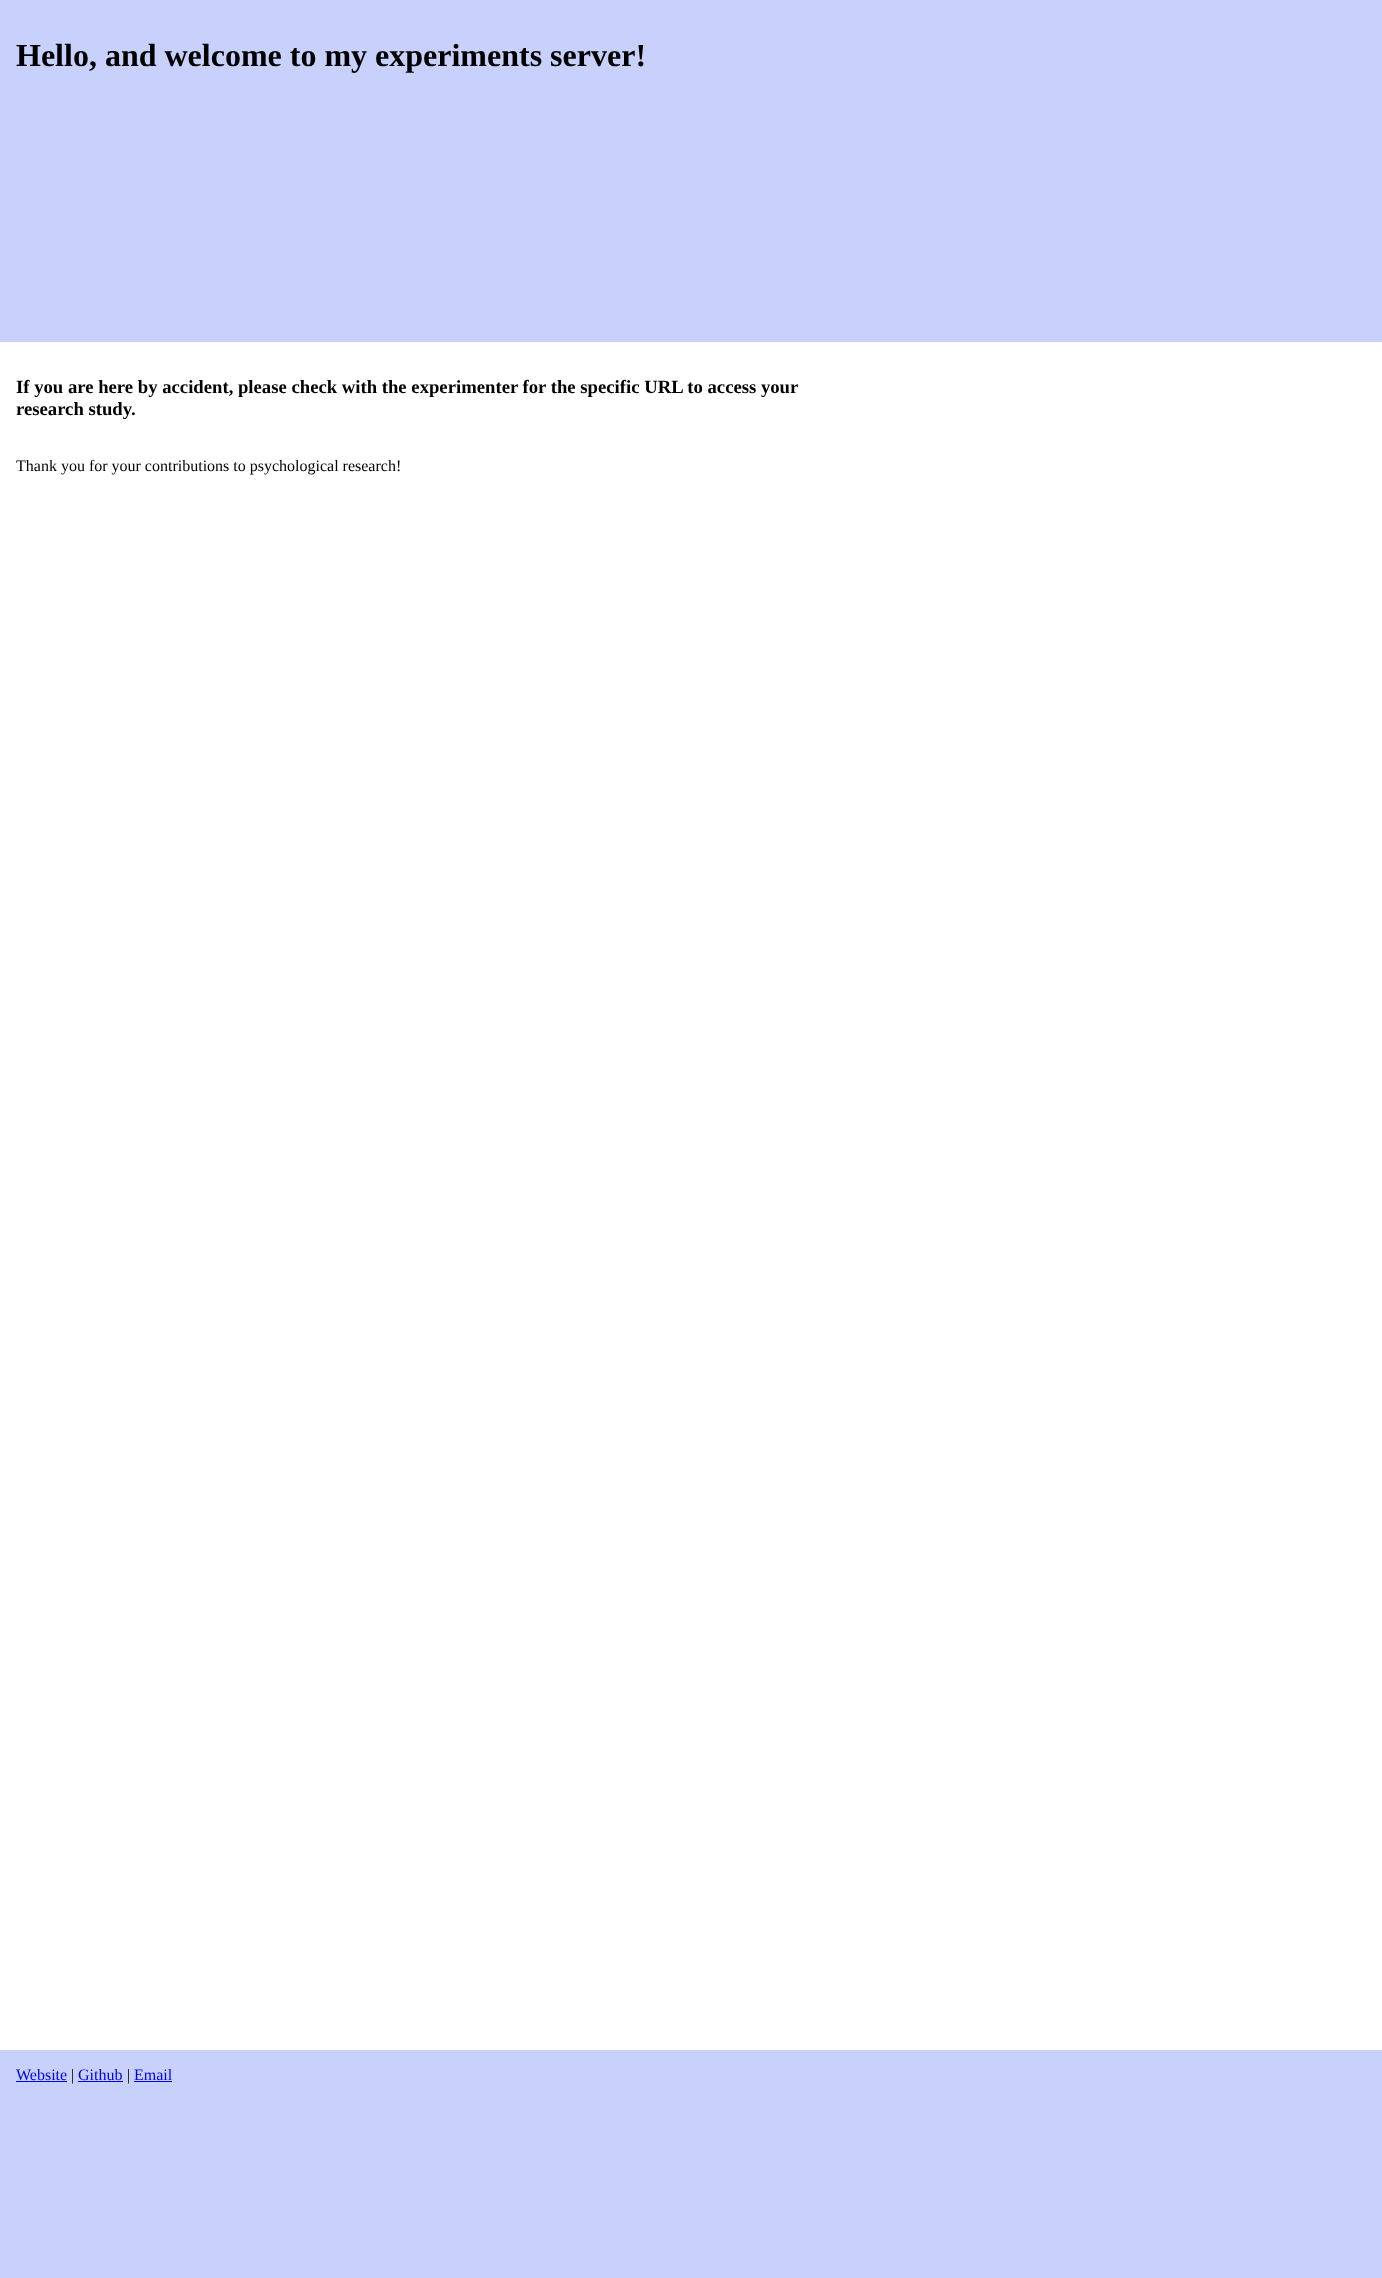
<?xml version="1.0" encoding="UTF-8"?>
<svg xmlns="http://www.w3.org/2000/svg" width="1382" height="2278">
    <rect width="100%" height="100%" fill="#FFFFFF"/>
    <rect x="0" y="0" width="1382" height="342" fill="#C7D1FC"/>
    <text x="16" y="66" font-family="Liberation Serif" font-size="32" font-weight="700" fill="#000000">Hello, and welcome to my experiments server!</text>
    <text font-family="Liberation Serif" font-size="18.7" font-weight="700" fill="#000000">
        <tspan x="16" y="393">If you are here by accident, please check with the experimenter for the specific URL to access your</tspan>
        <tspan x="16" y="415">research study.</tspan>
    </text>
    <text x="16" y="471" font-family="Liberation Serif" font-size="16" fill="#000000">Thank you for your contributions to psychological research!</text>
    <rect x="0" y="2050" width="1382" height="228" fill="#C7D1FC"/>
    <text x="16" y="2080" font-family="Liberation Serif" font-size="16" fill="#0000EE">Website</text>
    <rect x="16" y="2081" width="51" height="1" fill="#0000EE"/>
    <text x="71" y="2080" font-family="Liberation Serif" font-size="16" fill="#000000">|</text>
    <text x="78" y="2080" font-family="Liberation Serif" font-size="16" fill="#0000EE">Github</text>
    <rect x="78" y="2081" width="45" height="1" fill="#0000EE"/>
    <text x="127" y="2080" font-family="Liberation Serif" font-size="16" fill="#000000">|</text>
    <text x="134" y="2080" font-family="Liberation Serif" font-size="16" fill="#0000EE">Email</text>
    <rect x="134" y="2081" width="38" height="1" fill="#0000EE"/>
</svg>
